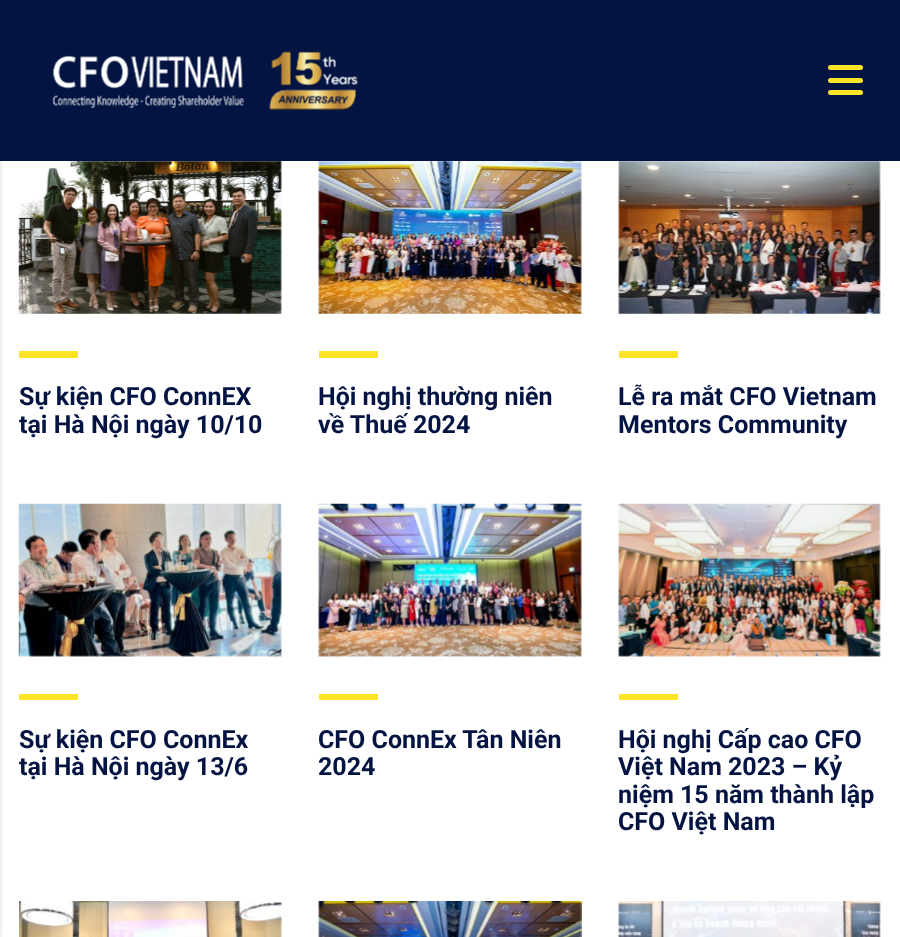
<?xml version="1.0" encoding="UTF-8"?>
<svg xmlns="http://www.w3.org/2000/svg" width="900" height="937">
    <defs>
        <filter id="blur1" x="-50%" y="-200%" width="200%" height="500%"><feGaussianBlur stdDeviation="3"/></filter>
    </defs>
    <rect width="100%" height="100%" fill="#FFFFFF"/>
    <rect x="0" y="0" width="900" height="161" fill="#031442"/>
    <image x="52" y="51" width="306" height="60" href="img_01.png"/>
    <rect x="828" y="65" width="35" height="5" rx="2.5" fill="#FDE428"/>
    <rect x="828" y="78" width="35" height="5" rx="2.5" fill="#FDE428"/>
    <rect x="828" y="90" width="35" height="5" rx="2.5" fill="#FDE428"/>
    <rect x="-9" y="4" width="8" height="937" fill="#000000" fill-opacity="0.2" filter="url(#blur1)"/>
    <image x="18" y="161" width="264" height="153" href="img_02.png"/>
    <rect x="19" y="351" width="59" height="7" fill="#FDE428"/>
    <text font-family="Roboto" font-size="25" font-weight="700" fill="#031442">
        <tspan x="19" y="405">Sự kiện CFO ConnEX</tspan>
        <tspan x="19" y="433">tại Hà Nội ngày 10/10</tspan>
    </text>
    <image x="318" y="161" width="264" height="153" href="img_03.png"/>
    <rect x="319" y="351" width="59" height="7" fill="#FDE428"/>
    <text font-family="Roboto" font-size="25" font-weight="700" fill="#031442">
        <tspan x="318" y="405">Hội nghị thường niên</tspan>
        <tspan x="318" y="433">về Thuế 2024</tspan>
    </text>
    <image x="618" y="161" width="263" height="153" href="img_04.png"/>
    <rect x="619" y="351" width="59" height="7" fill="#FDE428"/>
    <text font-family="Roboto" font-size="25" font-weight="700" fill="#031442">
        <tspan x="618" y="405">Lễ ra mắt CFO Vietnam</tspan>
        <tspan x="618" y="433">Mentors Community</tspan>
    </text>
    <image x="18" y="503" width="264" height="154" href="img_05.png"/>
    <rect x="19" y="694" width="59" height="6" fill="#FDE428"/>
    <text font-family="Roboto" font-size="25" font-weight="700" fill="#031442">
        <tspan x="19" y="748">Sự kiện CFO ConnEx</tspan>
        <tspan x="19" y="775">tại Hà Nội ngày 13/6</tspan>
    </text>
    <image x="318" y="503" width="264" height="154" href="img_06.png"/>
    <rect x="319" y="694" width="59" height="6" fill="#FDE428"/>
    <text font-family="Roboto" font-size="25" font-weight="700" fill="#031442">
        <tspan x="318" y="748">CFO ConnEx Tân Niên</tspan>
        <tspan x="318" y="775">2024</tspan>
    </text>
    <image x="618" y="503" width="263" height="154" href="img_07.png"/>
    <rect x="619" y="694" width="59" height="6" fill="#FDE428"/>
    <text font-family="Roboto" font-size="25" font-weight="700" fill="#031442">
        <tspan x="618" y="748">Hội nghị Cấp cao CFO</tspan>
        <tspan x="618" y="775">Việt Nam 2023 – Kỷ</tspan>
        <tspan x="618" y="803">niệm 15 năm thành lập</tspan>
        <tspan x="618" y="830">CFO Việt Nam</tspan>
    </text>
    <image x="19" y="901" width="263" height="36" href="img_08.png"/>
    <image x="318" y="901" width="264" height="36" href="img_09.png"/>
    <image x="618" y="901" width="263" height="36" href="img_10.png"/>
</svg>
